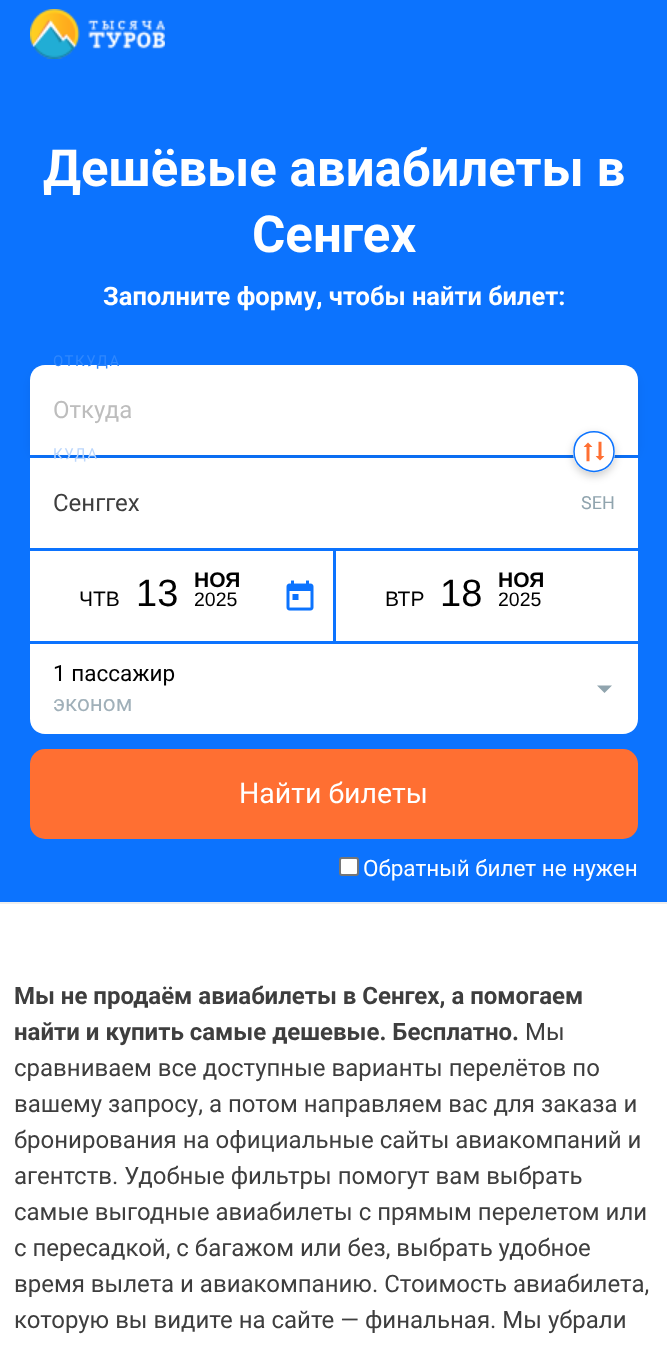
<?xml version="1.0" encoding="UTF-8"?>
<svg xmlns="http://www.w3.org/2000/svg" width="667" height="1348">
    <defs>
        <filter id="blur1" x="-50%" y="-200%" width="200%" height="500%"><feGaussianBlur stdDeviation="6"/></filter>
        <filter id="blur2" x="-50%" y="-200%" width="200%" height="500%"><feGaussianBlur stdDeviation="4.5"/></filter>
    </defs>
    <rect width="100%" height="100%" fill="#FFFFFF"/>
    <rect x="0" y="0" width="667" height="902" fill="#0C73FE"/>
    <image x="30" y="9" width="135" height="50" href="img_01.png"/>
    <rect x="0" y="902" width="667" height="2" fill="#EEEEEE"/>
    <text x="43" y="186" font-family="Roboto" font-size="51" font-weight="700" fill="#FFFFFF">Дешёвые авиабилеты в</text>
    <text x="252" y="252" font-family="Roboto" font-size="51" font-weight="700" fill="#FFFFFF">Сенгех</text>
    <text x="103" y="305" font-family="Roboto" font-size="25.5" font-weight="700" fill="#FFFFFF">Заполните форму, чтобы найти билет:</text>
    <rect x="30" y="371" width="608" height="90" rx="15" fill="#000000" fill-opacity="0.06" filter="url(#blur1)"/>
    <path d="M 45 365 H 623 C 631.5 365 638 371.5 638 380 V 455 H 30 V 380 C 30 371.5 36.5 365 45 365 Z" fill="#FFFFFF"/>
    <text x="53" y="366" font-family="Roboto" font-size="15" letter-spacing="1.5" fill="#2E87FE">ОТКУДА</text>
    <text x="53" y="418" font-family="Roboto" font-size="24" fill="#BDBDBD">Откуда</text>
    <rect x="30" y="458" width="608" height="90" fill="#FFFFFF"/>
    <rect x="573" y="434" width="42" height="42" rx="21" fill="#000000" fill-opacity="0.2" filter="url(#blur2)"/>
    <path d="M 615 452 C 615 479 573 479 573 452 C 573 424 615 424 615 452 Z" fill="#FFFFFF"/>
    <path d="M 614 451.5 C 614 478 574 478 574 451.5 C 574 425 614 425 614 451.5 Z" fill="none" stroke="#0C73FE" stroke-width="1.5"/>
    <image x="583" y="442" width="10" height="20" href="img_02.png"/>
    <image x="595" y="441" width="10" height="20" href="img_03.png"/>
    <text x="53" y="459" font-family="Roboto" font-size="15" letter-spacing="1.5" fill="#BCD7FC">КУДА</text>
    <text x="53" y="511" font-family="Roboto" font-size="24" fill="#3E3E3E">Сенггех</text>
    <text x="581" y="509" font-family="Roboto" font-size="18" fill="#90A4AE">SEH</text>
    <rect x="30" y="551" width="303" height="90" fill="#FFFFFF"/>
    <text x="79" y="606" font-family="Liberation Sans" font-size="21" fill="#000000">ЧТВ</text>
    <text x="136" y="606" font-family="Liberation Sans" font-size="38" fill="#000000">13</text>
    <text x="194" y="587" font-family="Liberation Sans" font-size="21" font-weight="700" fill="#000000">НОЯ</text>
    <text x="194" y="606" font-family="Liberation Sans" font-size="19.5" fill="#000000">2025</text>
    <image x="286" y="580" width="28" height="31" href="img_04.png"/>
    <rect x="336" y="551" width="302" height="90" fill="#FFFFFF"/>
    <text x="385" y="606" font-family="Liberation Sans" font-size="21" fill="#000000">ВТР</text>
    <text x="440" y="606" font-family="Liberation Sans" font-size="38" fill="#000000">18</text>
    <text x="498" y="587" font-family="Liberation Sans" font-size="21" font-weight="700" fill="#000000">НОЯ</text>
    <text x="498" y="606" font-family="Liberation Sans" font-size="19.5" fill="#000000">2025</text>
    <path d="M 30 644 H 638 V 719 C 638 727.5 631.5 734 623 734 H 45 C 36.5 734 30 727.5 30 719 Z" fill="#FFFFFF"/>
    <text x="53" y="681" font-family="Roboto" font-size="22.5" fill="#000000">1 пассажир</text>
    <path d="M 597 685.5 H 612 L 604.5 693 Z" fill="#90A4AE"/>
    <text x="53" y="711" font-family="Roboto" font-size="22.5" fill="#A0B0B9">эконом</text>
    <rect x="30" y="749" width="608" height="90" rx="15" fill="#FF6F32"/>
    <text x="239" y="803" font-family="Roboto" font-size="28.5" fill="#FFFFFF">Найти билеты</text>
    <rect x="340" y="858" width="18" height="17" rx="2" fill="#FFFFFF" stroke="#767676" stroke-width="2"/>
    <text x="363" y="876" font-family="Roboto" font-size="22.5" fill="#FFFFFF">Обратный билет не нужен</text>
    <text font-family="Roboto" font-size="24" font-weight="700" fill="#3E3E3E">
        <tspan x="14" y="1004">Мы не продаём авиабилеты в Сенгех, а помогаем</tspan>
        <tspan x="14" y="1040">найти и купить самые дешевые. Бесплатно.</tspan>
    </text>
    <text x="525" y="1040" font-family="Roboto" font-size="24" fill="#3E3E3E">Мы</text>
    <text font-family="Roboto" font-size="24" fill="#3E3E3E">
        <tspan x="14" y="1076">сравниваем все доступные варианты перелётов по</tspan>
        <tspan x="14" y="1112">вашему запросу, а потом направляем вас для заказа и</tspan>
        <tspan x="14" y="1148">бронирования на официальные сайты авиакомпаний и</tspan>
        <tspan x="14" y="1184">агентств. Удобные фильтры помогут вам выбрать</tspan>
        <tspan x="14" y="1220">самые выгодные авиабилеты с прямым перелетом или</tspan>
        <tspan x="14" y="1256">с пересадкой, с багажом или без, выбрать удобное</tspan>
        <tspan x="14" y="1292">время вылета и авиакомпанию. Стоимость авиабилета,</tspan>
        <tspan x="14" y="1328">которую вы видите на сайте — финальная. Мы убрали</tspan>
    </text>
</svg>
